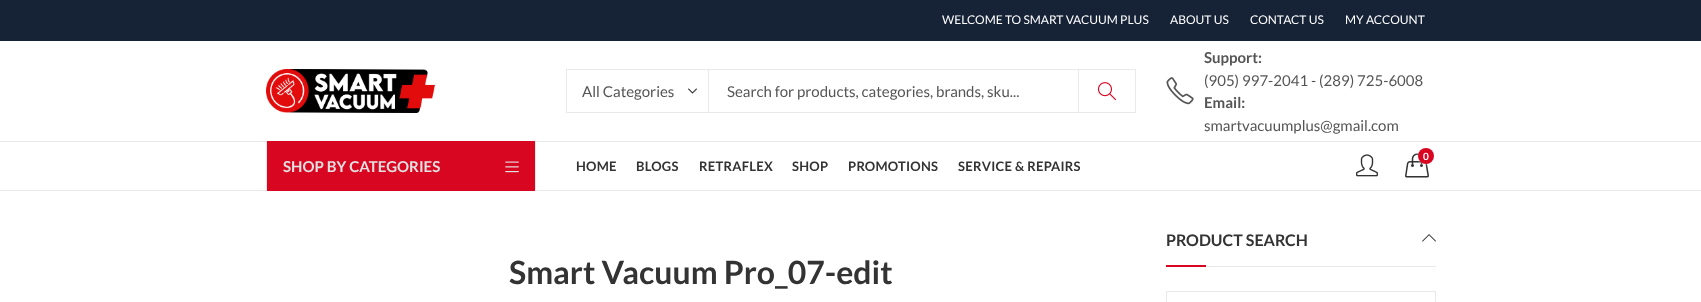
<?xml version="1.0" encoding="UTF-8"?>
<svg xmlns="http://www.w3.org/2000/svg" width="1701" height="302">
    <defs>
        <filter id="blur1" x="-50%" y="-200%" width="200%" height="500%"><feGaussianBlur stdDeviation="1.5"/></filter>
    </defs>
    <rect width="100%" height="100%" fill="#FFFFFF"/>
    <rect x="0" y="0" width="1701" height="41" fill="#162236"/>
    <text x="942" y="24" font-family="Lato" font-size="12" fill="#FFFFFF">WELCOME TO SMART VACUUM PLUS</text>
    <text x="1170" y="24" font-family="Lato" font-size="12" fill="#FFFFFF">ABOUT US</text>
    <text x="1250" y="24" font-family="Lato" font-size="12" fill="#FFFFFF">CONTACT US</text>
    <text x="1345" y="24" font-family="Lato" font-size="12" fill="#FFFFFF">MY ACCOUNT</text>
    <image x="266" y="69" width="169" height="44" href="img_01.png"/>
    <rect x="566.5" y="69.5" width="569" height="43" fill="none" stroke="#E9E9E9"/>
    <image x="688" y="88" width="9" height="6" href="img_02.png"/>
    <rect x="708" y="70" width="1" height="42" fill="#E9E9E9"/>
    <text x="582" y="97" font-family="Lato" font-size="15" fill="#555555">All Categories</text>
    <rect x="1078" y="70" width="1" height="42" fill="#E9E9E9"/>
    <text x="727" y="97" font-family="Lato" font-size="15" fill="#555555">Search for products, categories, brands, sku...</text>
    <image x="1097" y="82" width="19" height="19" href="img_03.png"/>
    <image x="1166" y="77" width="28" height="28" href="img_04.png"/>
    <text x="1204" y="63" font-family="Lato" font-size="15" font-weight="700" fill="#555555">Support:</text>
    <text x="1204" y="86" font-family="Lato" font-size="15" fill="#555555">(905) 997-2041 - (289) 725-6008</text>
    <text x="1204" y="108" font-family="Lato" font-size="15" font-weight="700" fill="#555555">Email:</text>
    <text x="1204" y="131" font-family="Lato" font-size="15" fill="#555555">smartvacuumplus@gmail.com</text>
    <rect x="0" y="141" width="1701" height="1" fill="#E9E9E9"/>
    <rect x="0" y="190" width="1701" height="1" fill="#E9E9E9"/>
    <image x="1356" y="154" width="22" height="23" href="img_05.png"/>
    <image x="1405" y="153" width="24" height="25" href="img_06.png"/>
    <rect x="1418" y="148" width="16" height="16" rx="8" fill="#FFFFFF" fill-opacity="0.7" filter="url(#blur1)"/>
    <circle cx="1426" cy="156" r="8" fill="#D80621"/>
    <text x="1423" y="160" font-family="Lato" font-size="10" font-weight="700" fill="#FFFFFF">0</text>
    <rect x="267" y="141" width="268" height="50" fill="#D80621"/>
    <rect x="535" y="141" width="1" height="50" fill="#E9E9E9"/>
    <rect x="266" y="141" width="1" height="50" fill="#E9E9E9"/>
    <text x="283" y="172" font-family="Lato" font-size="15" font-weight="700" fill="#E2E2E2">SHOP BY CATEGORIES</text>
    <image x="505" y="161" width="14" height="12" href="img_07.png"/>
    <text x="576" y="171" font-family="Lato" font-size="13" font-weight="700" letter-spacing="0.25" fill="#333333">HOME</text>
    <text x="636" y="171" font-family="Lato" font-size="13" font-weight="700" letter-spacing="0.25" fill="#333333">BLOGS</text>
    <text x="699" y="171" font-family="Lato" font-size="13" font-weight="700" letter-spacing="0.25" fill="#333333">RETRAFLEX</text>
    <text x="792" y="171" font-family="Lato" font-size="13" font-weight="700" letter-spacing="0.25" fill="#333333">SHOP</text>
    <text x="848" y="171" font-family="Lato" font-size="13" font-weight="700" letter-spacing="0.25" fill="#333333">PROMOTIONS</text>
    <text x="958" y="171" font-family="Lato" font-size="13" font-weight="700" letter-spacing="0.25" fill="#333333">SERVICE &amp; REPAIRS</text>
    <rect x="1206" y="266" width="230" height="1" fill="#E9E9E9"/>
    <text x="1166" y="246" font-family="Lato" font-size="16" font-weight="700" fill="#333333">PRODUCT SEARCH</text>
    <image x="1422" y="234" width="14" height="8" href="img_08.png"/>
    <rect x="1166" y="265" width="40" height="2" fill="#D80621"/>
    <rect x="1166.5" y="291.5" width="269" height="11" fill="none" stroke="#E9E9E9"/>
    <text x="509" y="284" font-family="Lato" font-size="32" font-weight="700" fill="#333333">Smart Vacuum Pro_07-edit</text>
</svg>
